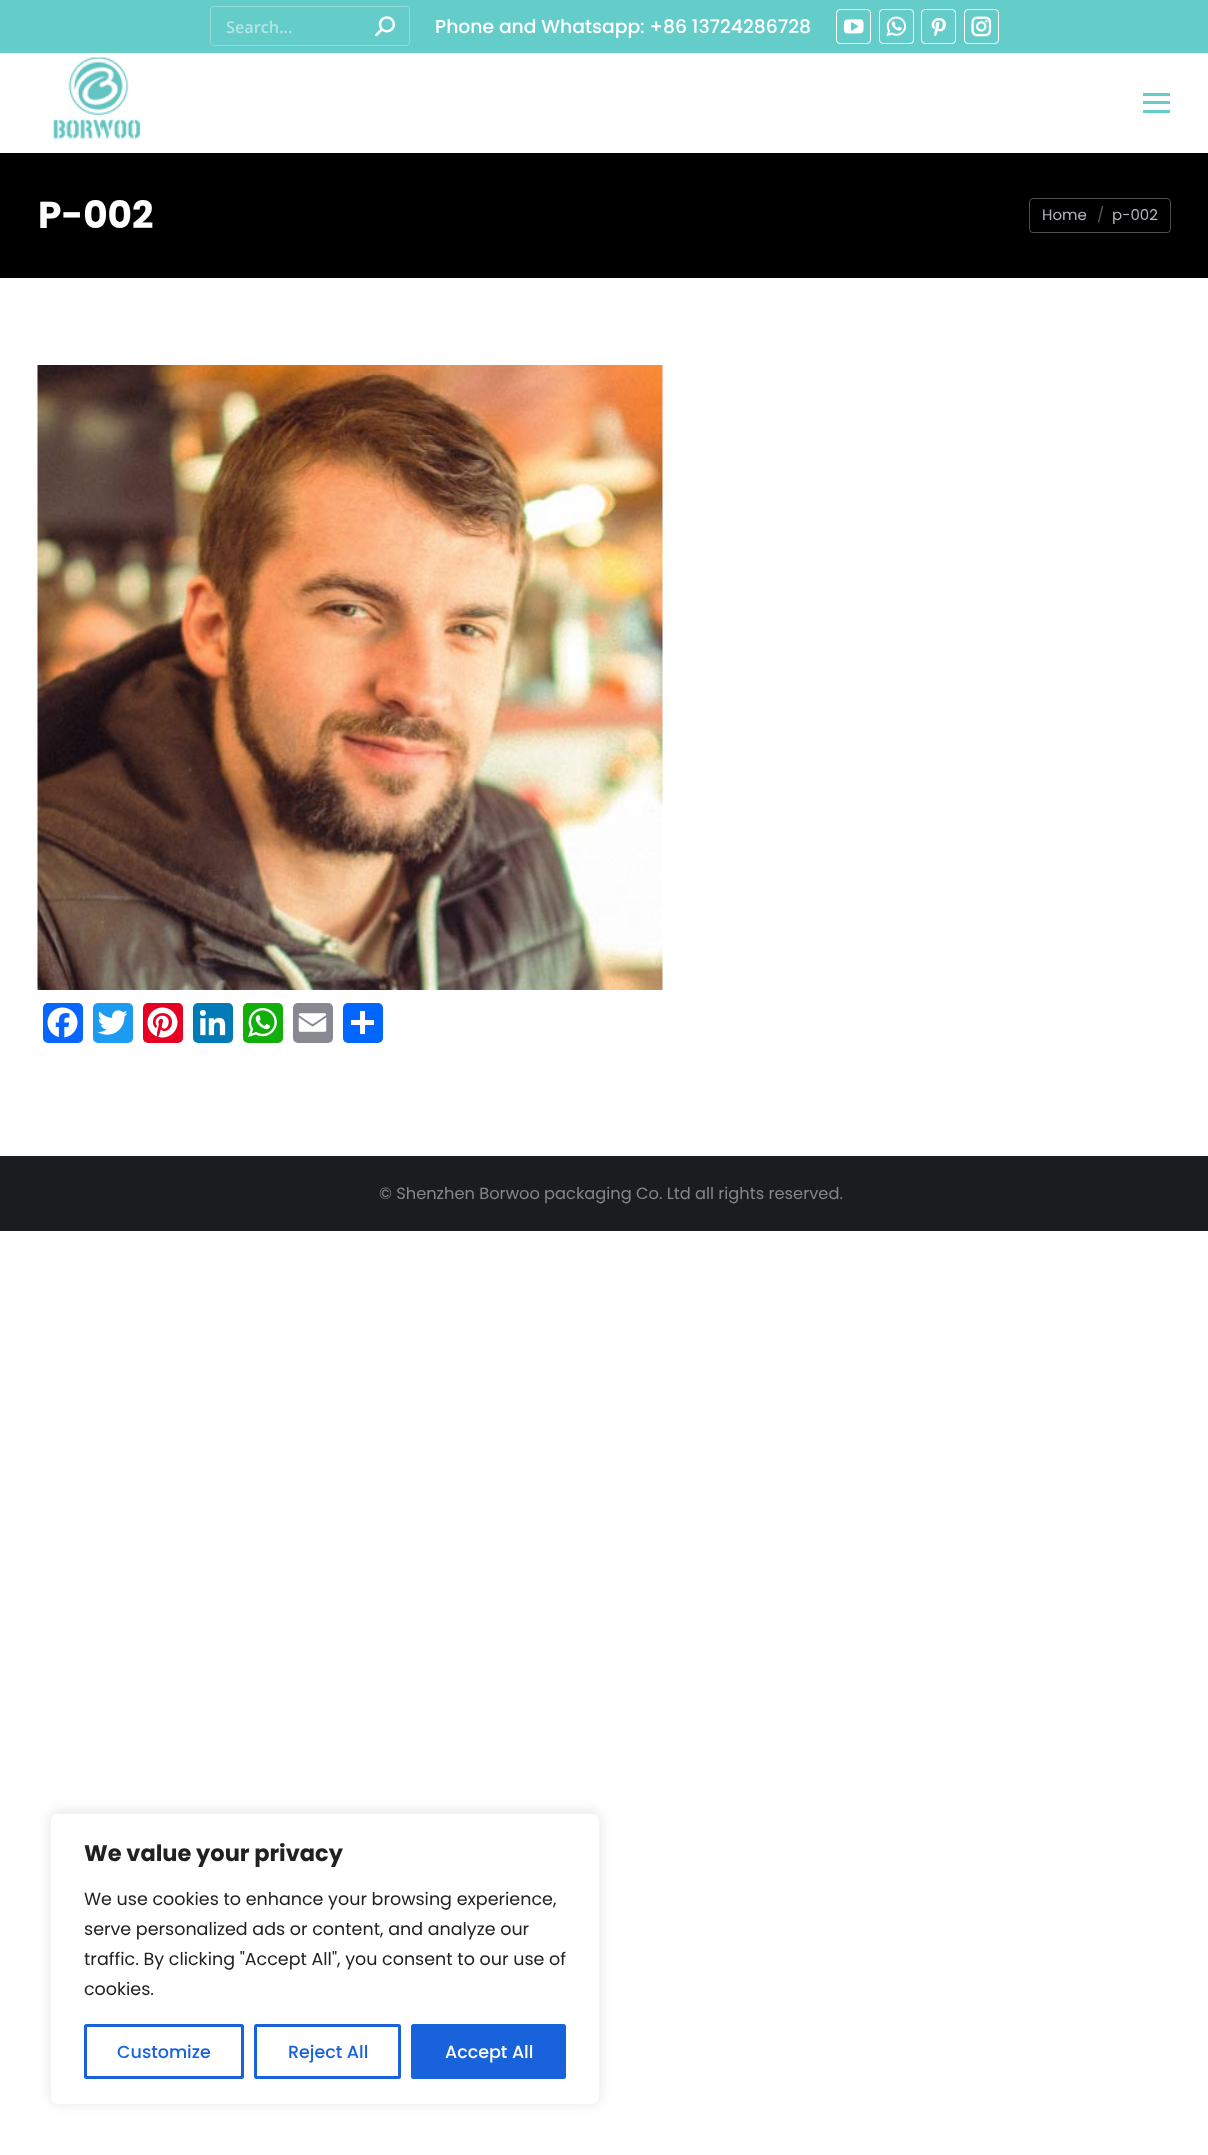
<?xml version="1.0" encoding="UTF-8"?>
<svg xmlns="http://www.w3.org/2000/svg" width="1208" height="2155">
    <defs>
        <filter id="blur1" x="-50%" y="-200%" width="200%" height="500%"><feGaussianBlur stdDeviation="9.5"/></filter>
        <clipPath id="clip1"><path d="M 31 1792 H 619 V 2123 H 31 Z M 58 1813 H 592 C 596.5 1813 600 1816.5 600 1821 V 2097 C 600 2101.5 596.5 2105 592 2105 H 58 C 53.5 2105 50 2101.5 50 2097 V 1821 C 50 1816.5 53.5 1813 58 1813 Z" clip-rule="evenodd"/></clipPath>
        <filter id="blur2" x="-50%" y="-200%" width="200%" height="500%"><feGaussianBlur stdDeviation="6"/></filter>
    </defs>
    <rect width="100%" height="100%" fill="#FFFFFF"/>
    <rect x="0" y="153" width="1208" height="125" fill="#000000"/>
    <rect x="-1" y="-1" width="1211" height="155" fill="#000000" fill-opacity="0.07" filter="url(#blur1)"/>
    <rect x="0" y="53" width="1208" height="100" fill="#FFFFFF"/>
    <rect x="0" y="0" width="1208" height="53" fill="#64CCC9"/>
    <rect x="210.5" y="6.5" width="199" height="39" rx="3.5" fill="none" stroke="#93DBD9"/>
    <text x="226" y="33" font-family="Open Sans" font-size="16.25" font-weight="600" fill="#B2E6E4">Search...</text>
    <image x="375" y="16" width="20" height="21" href="img_01.png"/>
    <text x="435" y="33" font-family="Poppins" font-size="18.75" font-weight="500" fill="#FFFFFF">Phone and Whatsapp: +86 13724286728</text>
    <rect x="836.5" y="9.5" width="34" height="34" rx="3.5" fill="none" stroke="#FFFFFF"/>
    <image x="843" y="19" width="21" height="15" href="img_02.png"/>
    <rect x="879.5" y="9.5" width="34" height="34" rx="3.5" fill="none" stroke="#FFFFFF"/>
    <image x="886" y="16" width="21" height="21" href="img_03.png"/>
    <rect x="921.5" y="9.5" width="34" height="34" rx="3.5" fill="none" stroke="#FFFFFF"/>
    <image x="931" y="18" width="15" height="19" href="img_04.png"/>
    <rect x="964.5" y="9.5" width="34" height="34" rx="3.5" fill="none" stroke="#FFFFFF"/>
    <image x="971" y="16" width="21" height="21" href="img_05.png"/>
    <image x="53" y="57" width="88" height="82" href="img_06.png"/>
    <rect x="1143" y="93" width="27" height="3" fill="#64CCC9"/>
    <rect x="1143" y="101" width="27" height="3" fill="#64CCC9"/>
    <rect x="1143" y="110" width="27" height="3" fill="#64CCC9"/>
    <text x="38" y="228" font-family="Poppins" font-size="37.5" font-weight="700" fill="#FFFFFF">P-002</text>
    <rect x="1029.5" y="198.5" width="141" height="34" rx="3.5" fill="none" stroke="#4D4D4D"/>
    <text x="1042" y="220" font-family="Poppins" font-size="15" fill="#B4B5BB">Home</text>
    <text x="1097" y="220" font-family="Poppins" font-size="15" fill="#5A5B5E">/</text>
    <text x="1112" y="220" font-family="Poppins" font-size="15" fill="#B4B5BB">p-002</text>
    <image x="37" y="365" width="626" height="625" href="img_07.png"/>
    <rect x="43" y="1003" width="40" height="40" rx="5" fill="#0866FF"/>
    <image x="47" y="1007" width="31" height="31" href="img_08.png"/>
    <rect x="93" y="1003" width="40" height="40" rx="5" fill="#1D9BF0"/>
    <image x="97" y="1010" width="31" height="25" href="img_09.png"/>
    <rect x="143" y="1003" width="40" height="40" rx="5" fill="#E60023"/>
    <image x="147" y="1007" width="31" height="31" href="img_10.png"/>
    <rect x="193" y="1003" width="40" height="40" rx="5" fill="#007BB5"/>
    <image x="199" y="1009" width="27" height="27" href="img_11.png"/>
    <rect x="243" y="1003" width="40" height="40" rx="5" fill="#12AF0A"/>
    <image x="248" y="1008" width="29" height="29" href="img_12.png"/>
    <rect x="293" y="1003" width="40" height="40" rx="5" fill="#888990"/>
    <image x="298" y="1013" width="29" height="19" href="img_13.png"/>
    <rect x="343" y="1003" width="40" height="40" rx="5" fill="#0166FF"/>
    <rect x="360" y="1011" width="5" height="23" fill="#FFFFFF"/>
    <rect x="351" y="1020" width="23" height="5" fill="#FFFFFF"/>
    <rect x="0" y="1156" width="1208" height="75" fill="#1A1C20"/>
    <text x="379" y="1199" font-family="Poppins" font-size="16.25" fill="#85868C">© Shenzhen Borwoo packaging Co. Ltd all rights reserved.</text>
    <g clip-path="url(#clip1)">
        <rect x="50" y="1811" width="550" height="293" rx="8" fill="#ACABAB" fill-opacity="0.3" filter="url(#blur2)"/>
    </g>
    <rect x="50.5" y="1813.5" width="549" height="291" rx="7.5" fill="none" stroke="#F4F4F4"/>
    <text x="84" y="1861" font-family="Poppins" font-size="22.5" font-weight="700" fill="#212121">We value your privacy</text>
    <text font-family="Poppins" font-size="17.5" fill="#212121">
        <tspan x="84" y="1905">We use cookies to enhance your browsing experience,</tspan>
        <tspan x="84" y="1935">serve personalized ads or content, and analyze our</tspan>
        <tspan x="84" y="1965">traffic. By clicking "Accept All", you consent to our use of</tspan>
        <tspan x="84" y="1995">cookies.</tspan>
    </text>
    <rect x="85.5" y="2025.5" width="157" height="52" rx="1" fill="none" stroke="#1863DC" stroke-width="3"/>
    <text x="117" y="2058" font-family="Poppins" font-size="17.5" font-weight="500" fill="#1863DC">Customize</text>
    <rect x="255.5" y="2025.5" width="144" height="52" rx="1" fill="none" stroke="#1863DC" stroke-width="3"/>
    <text x="288" y="2058" font-family="Poppins" font-size="17.5" font-weight="500" fill="#1863DC">Reject All</text>
    <rect x="412.5" y="2025.5" width="152" height="52" rx="1" fill="#1863DC" stroke="#1863DC" stroke-width="3"/>
    <text x="445" y="2058" font-family="Poppins" font-size="17.5" font-weight="500" fill="#FFFFFF">Accept All</text>
</svg>
